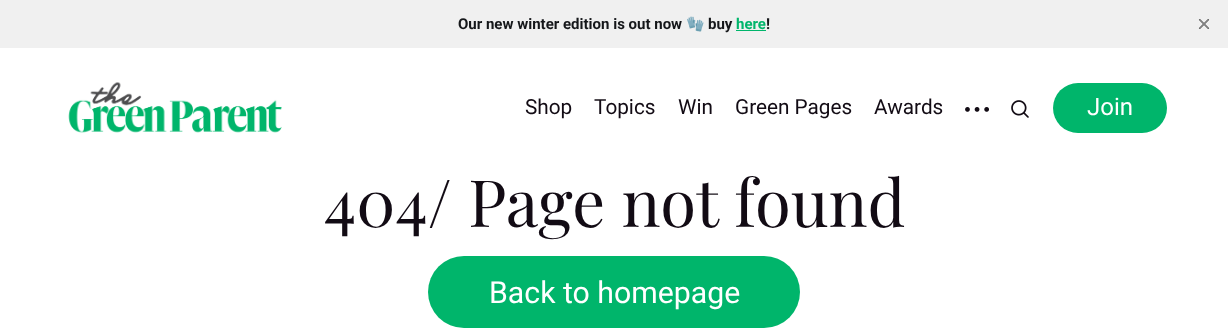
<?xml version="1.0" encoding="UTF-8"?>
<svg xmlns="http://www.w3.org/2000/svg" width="1228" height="332">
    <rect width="100%" height="100%" fill="#FFFFFF"/>
    <rect x="0" y="0" width="1228" height="48" fill="#F0F0F0"/>
    <text x="458" y="29" font-family="Roboto" font-size="15" font-weight="700" fill="#15171A">Our new winter edition is out now</text>
    <text x="686" y="29" font-family="Noto Color Emoji" font-size="15" fill="#15171A">🧤</text>
    <text x="708" y="29" font-family="Roboto" font-size="15" font-weight="700" fill="#15171A">buy</text>
    <rect x="736" y="30" width="30" height="1" fill="#00B56B"/>
    <text x="736" y="29" font-family="Roboto" font-size="15" font-weight="700" fill="#00B56B">here</text>
    <text x="766" y="29" font-family="Roboto" font-size="15" font-weight="700" fill="#15171A">!</text>
    <image x="1198" y="19" width="12" height="10" href="img_01.png"/>
    <image x="68" y="82" width="214" height="51" href="img_02.png"/>
    <text x="525" y="114" font-family="Roboto" font-size="20.75" fill="#120B14">Shop</text>
    <text x="594" y="114" font-family="Roboto" font-size="20.75" fill="#120B14">Topics</text>
    <text x="678" y="114" font-family="Roboto" font-size="20.75" fill="#120B14">Win</text>
    <text x="735" y="114" font-family="Roboto" font-size="20.75" fill="#120B14">Green Pages</text>
    <text x="874" y="114" font-family="Roboto" font-size="20.75" fill="#120B14">Awards</text>
    <image x="965" y="107" width="24" height="5" href="img_03.png"/>
    <image x="1011" y="100" width="18" height="18" href="img_04.png"/>
    <rect x="1053" y="83" width="114" height="50" rx="25" fill="#00B56B"/>
    <text x="1087" y="115" font-family="Roboto" font-size="24" fill="#FFFFFF">Join</text>
    <text x="324" y="227" font-family="Playfair Display" font-size="65.25" fill="#120B14">404/ Page not found</text>
    <rect x="428" y="256" width="372" height="72" rx="36" fill="#00B56B"/>
    <text x="489" y="303" font-family="Roboto" font-size="30.25" fill="#FFFFFF">Back to homepage</text>
</svg>
